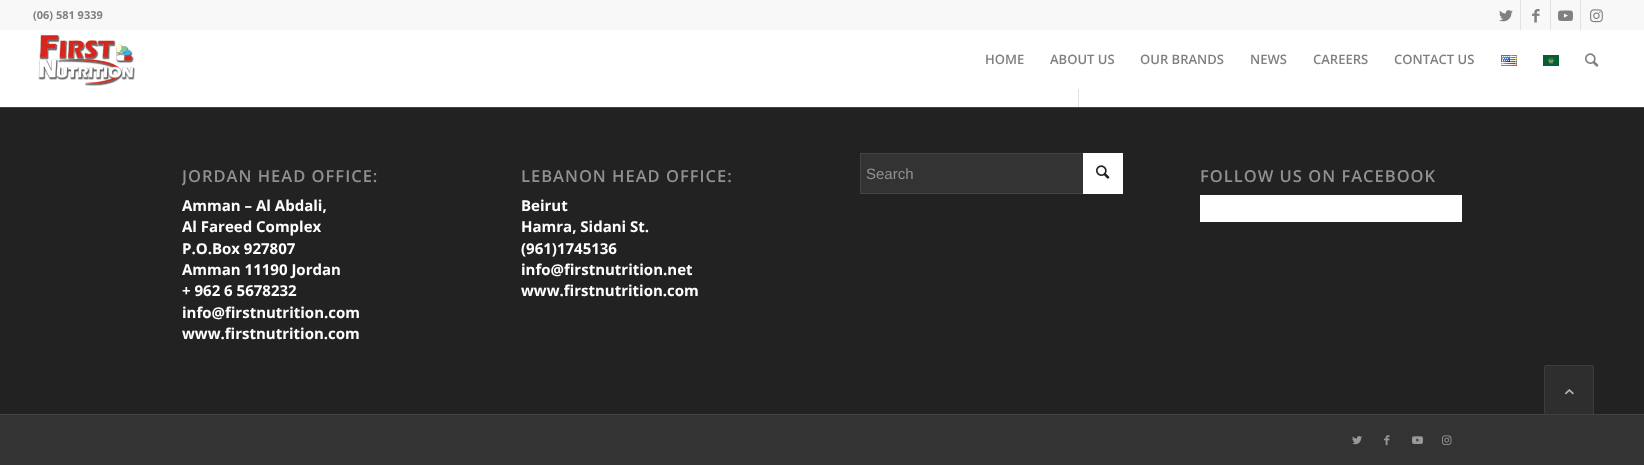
<?xml version="1.0" encoding="UTF-8"?>
<svg xmlns="http://www.w3.org/2000/svg" width="1644" height="465">
    <defs>
        <clipPath id="clip1"><rect x="182" y="153" width="262" height="202"/></clipPath>
    </defs>
    <rect width="100%" height="100%" fill="#FFFFFF"/>
    <rect x="0" y="0" width="1644" height="30" fill="#F8F8F8"/>
    <text x="33" y="19" font-family="Open Sans" font-size="11" font-weight="700" fill="#808080">(06) 581 9339</text>
    <rect x="1520" y="0" width="1" height="30" fill="#E1E1E1"/>
    <image x="1499" y="10" width="14" height="12" href="img_01.png"/>
    <rect x="1550" y="0" width="1" height="30" fill="#E1E1E1"/>
    <image x="1532" y="9" width="8" height="14" href="img_02.png"/>
    <rect x="1580" y="0" width="1" height="30" fill="#E1E1E1"/>
    <image x="1558" y="10" width="15" height="11" href="img_03.png"/>
    <image x="1590" y="9" width="13" height="14" href="img_04.png"/>
    <image x="38" y="35" width="97" height="51" href="img_05.png"/>
    <text x="985" y="64" font-family="Open Sans" font-size="13" font-weight="600" fill="#808080">HOME</text>
    <text x="1050" y="64" font-family="Open Sans" font-size="13" font-weight="600" fill="#808080">ABOUT US</text>
    <text x="1140" y="64" font-family="Open Sans" font-size="13" font-weight="600" fill="#808080">OUR BRANDS</text>
    <text x="1250" y="64" font-family="Open Sans" font-size="13" font-weight="600" fill="#808080">NEWS</text>
    <text x="1313" y="64" font-family="Open Sans" font-size="13" font-weight="600" fill="#808080">CAREERS</text>
    <text x="1394" y="64" font-family="Open Sans" font-size="13" font-weight="600" fill="#808080">CONTACT US</text>
    <image x="1501" y="55" width="16" height="11" href="img_06.png"/>
    <image x="1543" y="55" width="16" height="11" href="img_07.png"/>
    <image x="1585" y="53" width="14" height="14" href="img_08.png"/>
    <rect x="1078" y="89" width="1" height="18" fill="#E1E1E1"/>
    <rect x="0" y="108" width="1644" height="306" fill="#222222"/>
    <rect x="0" y="107" width="1644" height="1" fill="#444444"/>
    <g clip-path="url(#clip1)">
        <text x="182" y="182" font-family="Open Sans" font-size="16.5" font-weight="600" letter-spacing="1" fill="#919191">JORDAN HEAD OFFICE:</text>
    </g>
    <text font-family="Open Sans" font-size="15" font-weight="700" fill="#FFFFFF">
        <tspan x="182" y="211">Amman – Al Abdali,</tspan>
        <tspan x="182" y="232">Al Fareed Complex</tspan>
        <tspan x="182" y="254">P.O.Box 927807</tspan>
        <tspan x="182" y="275">Amman 11190 Jordan</tspan>
        <tspan x="182" y="296">+ 962 6 5678232</tspan>
        <tspan x="182" y="318">info@firstnutrition.com</tspan>
        <tspan x="182" y="339">www.firstnutrition.com</tspan>
    </text>
    <text x="521" y="182" font-family="Open Sans" font-size="16.5" font-weight="600" letter-spacing="1" fill="#919191">LEBANON HEAD OFFICE:</text>
    <text font-family="Open Sans" font-size="15" font-weight="700" fill="#FFFFFF">
        <tspan x="521" y="211">Beirut</tspan>
        <tspan x="521" y="232">Hamra, Sidani St.</tspan>
        <tspan x="521" y="254">(961)1745136</tspan>
        <tspan x="521" y="275">info@firstnutrition.net</tspan>
        <tspan x="521" y="296">www.firstnutrition.com</tspan>
    </text>
    <rect x="861" y="154" width="222" height="39" fill="#333333"/>
    <rect x="860.5" y="153.5" width="262" height="40" fill="none" stroke="#444444"/>
    <text x="866" y="179" font-family="Liberation Sans" font-size="15" fill="#919191">Search</text>
    <rect x="1083" y="153" width="40" height="41" fill="#FFFFFF"/>
    <image x="1096" y="165" width="14" height="14" href="img_09.png"/>
    <text x="1200" y="182" font-family="Open Sans" font-size="16.5" font-weight="600" letter-spacing="1" fill="#919191">FOLLOW US ON FACEBOOK</text>
    <rect x="1200" y="195" width="262" height="27" fill="#FFFFFF"/>
    <rect x="0" y="415" width="1644" height="50" fill="#333333"/>
    <rect x="0" y="414" width="1644" height="1" fill="#444444"/>
    <image x="1352" y="436" width="10" height="9" href="img_10.png"/>
    <image x="1384" y="435" width="6" height="11" href="img_11.png"/>
    <image x="1412" y="436" width="11" height="8" href="img_12.png"/>
    <image x="1442" y="435" width="10" height="10" href="img_13.png"/>
    <rect x="1544" y="365" width="50" height="50" rx="2" fill="#333333" fill-opacity="0.7"/>
    <rect x="1544.5" y="365.5" width="49" height="49" rx="1.5" fill="none" stroke="#444444" stroke-opacity="0.7"/>
    <image x="1565" y="389" width="9" height="6" href="img_14.png"/>
</svg>
